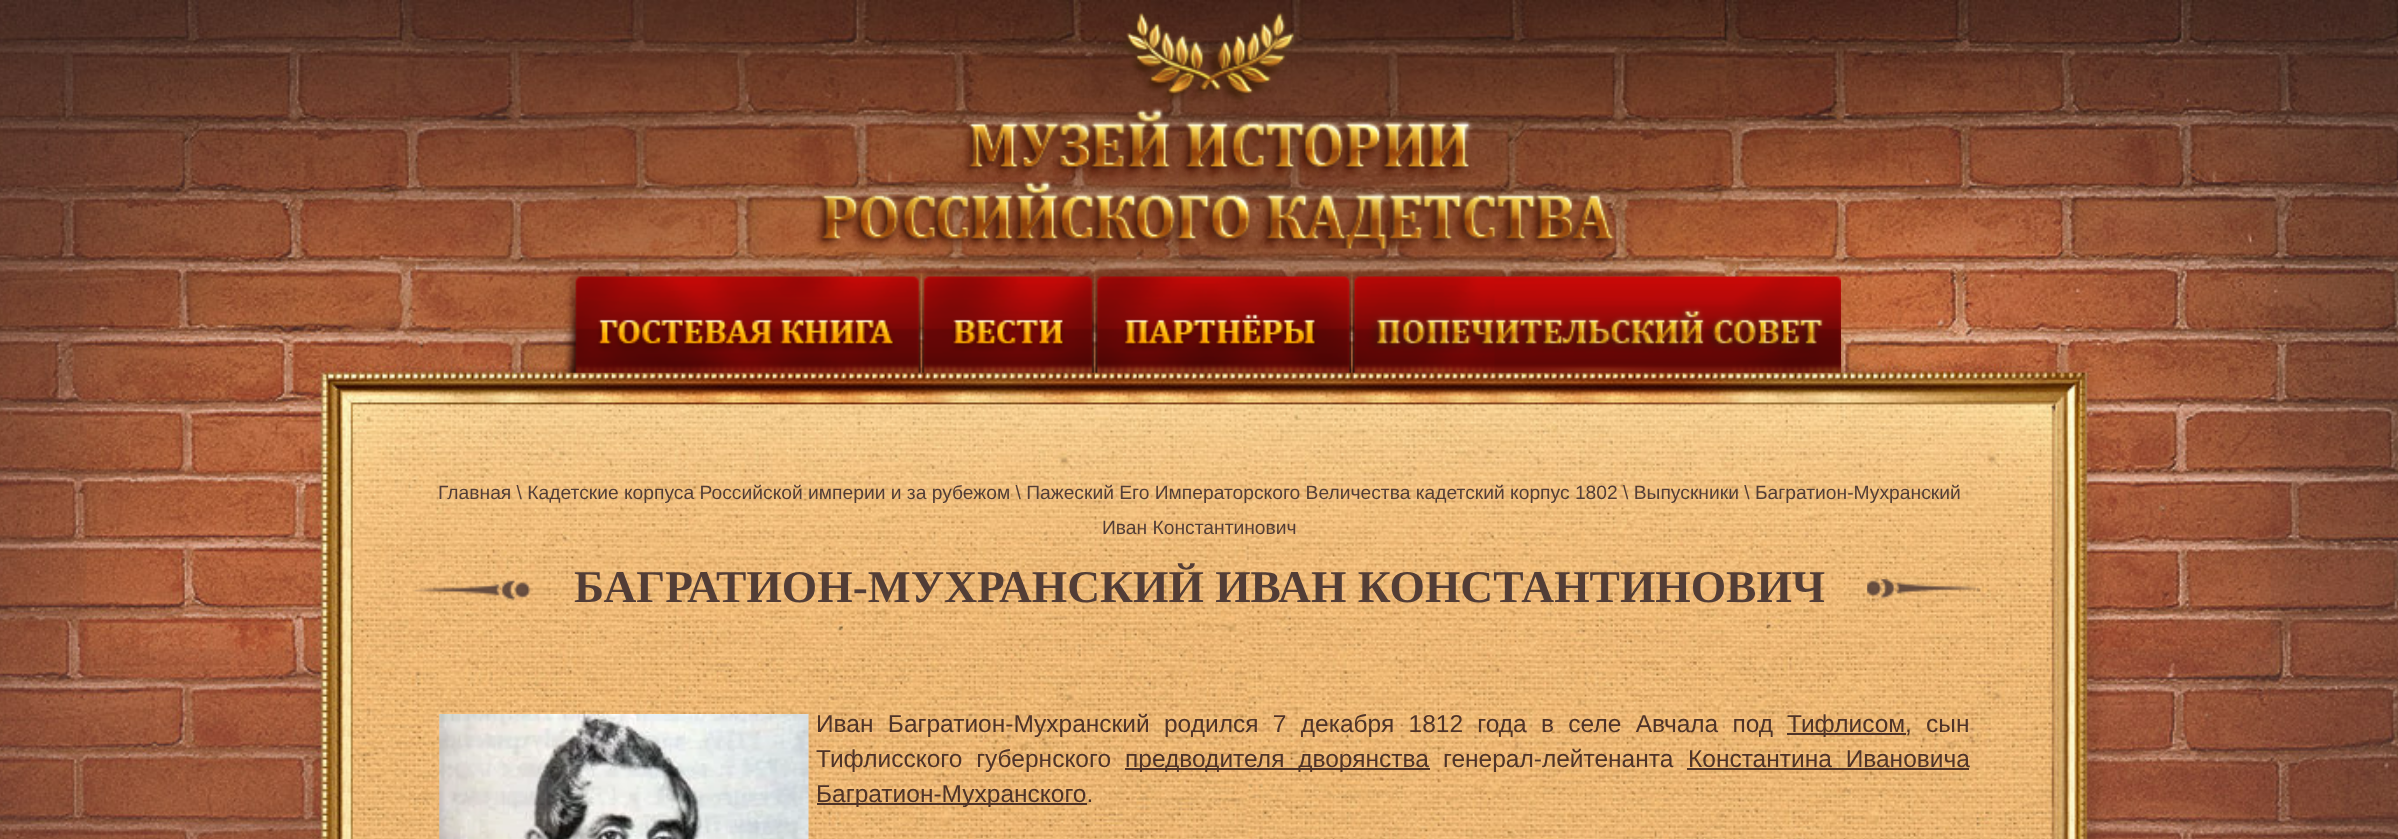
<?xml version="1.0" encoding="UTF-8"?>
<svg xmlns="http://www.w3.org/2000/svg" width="2398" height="839">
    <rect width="100%" height="100%" fill="#FFFFFF"/>
    <image x="0" y="0" width="2398" height="839" href="img_01.png"/>
    <image x="814" y="12" width="800" height="237" href="img_02.png"/>
    <image x="564" y="269" width="357" height="104" href="img_03.png"/>
    <image x="922" y="268" width="172" height="105" href="img_04.png"/>
    <image x="1095" y="268" width="256" height="105" href="img_05.png"/>
    <image x="1352" y="269" width="489" height="104" href="img_06.png"/>
    <text x="438" y="499" font-family="Liberation Sans" font-size="19.25" fill="#523D36">Главная \ Кадетские корпуса Российской империи и за рубежом \ Пажеский Его Императорского Величества кадетский корпус 1802 \ Выпускники \ Багратион-Мухранский</text>
    <text x="1102" y="534" font-family="Liberation Sans" font-size="19.25" fill="#523D36">Иван Константинович</text>
    <image x="412" y="579" width="119" height="22" href="img_07.png"/>
    <text x="574" y="602" font-family="Liberation Serif" font-size="45.5" font-weight="700" fill="#523D36">БАГРАТИОН-МУХРАНСКИЙ ИВАН КОНСТАНТИНОВИЧ</text>
    <image x="1867" y="579" width="109" height="20" href="img_08.png"/>
    <image x="439" y="714" width="370" height="125" href="img_09.png"/>
    <text x="816" y="732" word-spacing="7.5" font-family="Liberation Sans" font-size="24.5" fill="#4E3328">Иван Багратион-Мухранский родился 7 декабря 1812 года в селе Авчала под</text>
    <rect x="1787" y="733" width="119" height="2" fill="#4E3328"/>
    <text x="1787" y="732" font-family="Liberation Sans" font-size="24.5" fill="#4E3328">Тифлисом</text>
    <text x="1905" y="732" word-spacing="7.5" font-family="Liberation Sans" font-size="24.5" fill="#4E3328">, сын</text>
    <text x="816" y="767" word-spacing="7" font-family="Liberation Sans" font-size="24.5" fill="#4E3328">Тифлисского губернского</text>
    <rect x="1125" y="768" width="305" height="2" fill="#4E3328"/>
    <text x="1125" y="767" word-spacing="7" font-family="Liberation Sans" font-size="24.5" fill="#4E3328">предводителя дворянства</text>
    <text x="1443" y="767" font-family="Liberation Sans" font-size="24.5" fill="#4E3328">генерал-лейтенанта</text>
    <text x="1688" y="767" word-spacing="7" font-family="Liberation Sans" font-size="24.5" fill="#4E3328">Константина Ивановича</text>
    <rect x="1687" y="768" width="282" height="2" fill="#4E3328"/>
    <rect x="817" y="803" width="270" height="2" fill="#4E3328"/>
    <text x="816" y="802" font-family="Liberation Sans" font-size="24.5" fill="#4E3328">Багратион-Мухранского.</text>
</svg>
